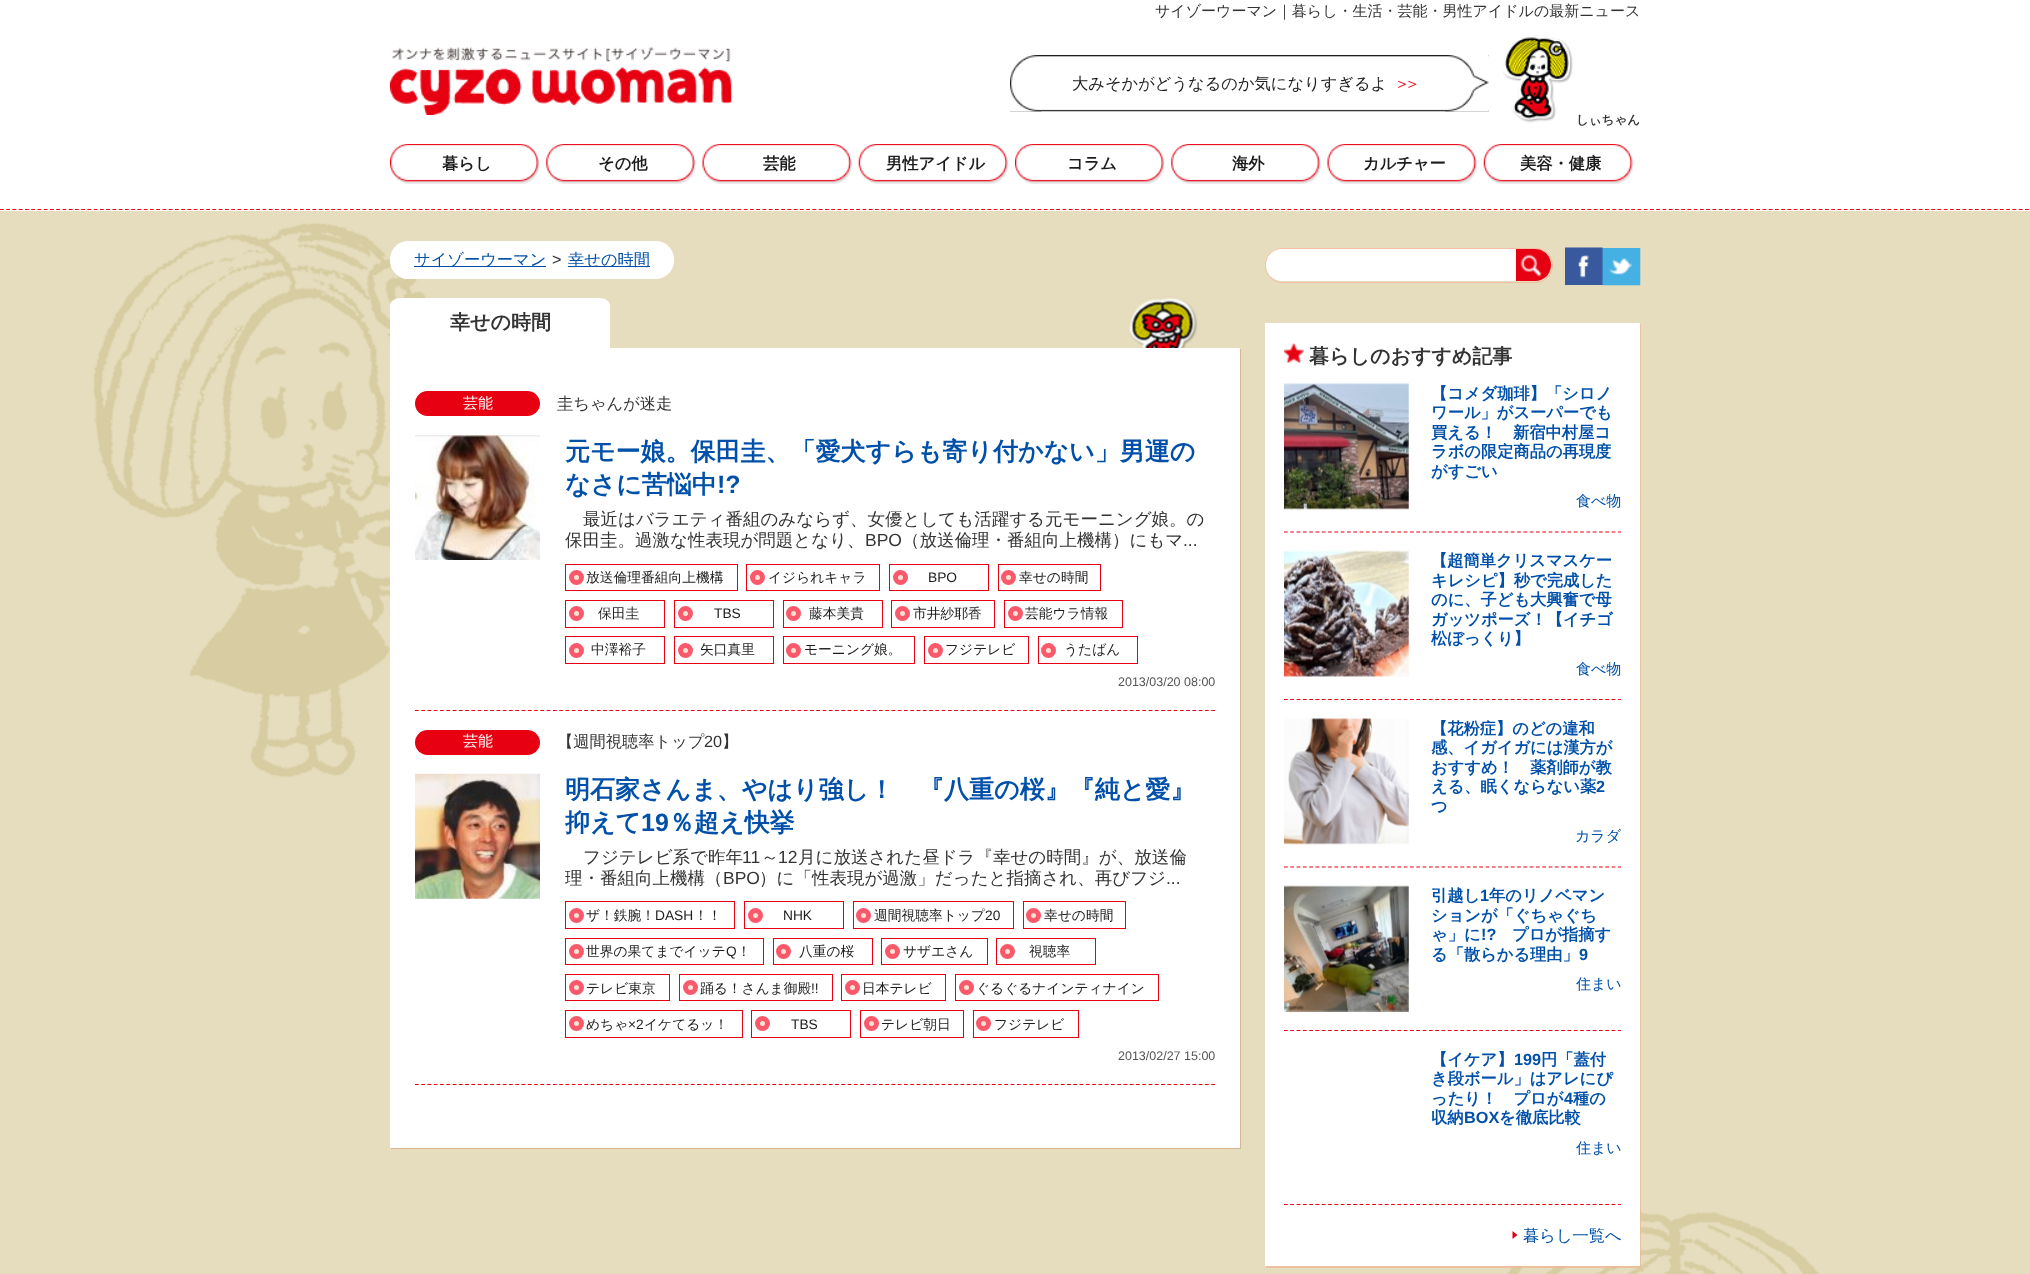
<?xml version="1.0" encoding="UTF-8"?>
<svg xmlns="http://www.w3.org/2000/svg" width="2030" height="1274">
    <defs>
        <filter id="blur1" x="-50%" y="-200%" width="200%" height="500%"><feGaussianBlur stdDeviation="0.5"/></filter>
    </defs>
    <rect width="100%" height="100%" fill="#E5DDBD"/>
    <rect x="0" y="0" width="2030" height="211" fill="#FFFFFF"/>
    <path d="M 0 209.5 H 2030" fill="none" stroke="#E60012" stroke-width="1.2" stroke-dasharray="3.75 2.5"/>
    <text x="1155" y="16" font-family="WenQuanYi Zen Hei" font-size="15" font-weight="500" fill="#333333">サイゾーウーマン｜暮らし・生活・芸能・男性アイドルの最新ニュース</text>
    <image x="390" y="47" width="342" height="68" href="img_01.png"/>
    <image x="1010" y="55" width="479" height="57" href="img_02.png"/>
    <text x="1072" y="89" font-family="WenQuanYi Zen Hei" font-size="16.25" font-weight="500" fill="#1D1D1D">大みそかがどうなるのか気になりすぎるよ</text>
    <text x="1394" y="89" font-family="WenQuanYi Zen Hei" font-size="16.25" font-weight="500" letter-spacing="-6" fill="#E60012">＞＞</text>
    <image x="1502" y="35" width="71" height="88" href="img_03.png"/>
    <text x="1576" y="124" font-family="WenQuanYi Zen Hei" font-size="12.5" font-weight="700" fill="#333333">しぃちゃん</text>
    <image x="390" y="144" width="150" height="40" href="img_04.png"/>
    <text x="442" y="169" font-family="WenQuanYi Zen Hei" font-size="16.25" font-weight="700" fill="#1D1D1D">暮らし</text>
    <image x="546" y="144" width="150" height="40" href="img_05.png"/>
    <text x="598" y="169" font-family="WenQuanYi Zen Hei" font-size="16.25" font-weight="700" fill="#1D1D1D">その他</text>
    <image x="702" y="144" width="151" height="40" href="img_06.png"/>
    <text x="763" y="169" font-family="WenQuanYi Zen Hei" font-size="16.25" font-weight="700" fill="#1D1D1D">芸能</text>
    <image x="858" y="144" width="151" height="40" href="img_07.png"/>
    <text x="886" y="169" font-family="WenQuanYi Zen Hei" font-size="16.25" font-weight="700" fill="#1D1D1D">男性アイドル</text>
    <image x="1015" y="144" width="150" height="40" href="img_04.png"/>
    <text x="1067" y="169" font-family="WenQuanYi Zen Hei" font-size="16.25" font-weight="700" fill="#1D1D1D">コラム</text>
    <image x="1171" y="144" width="150" height="40" href="img_05.png"/>
    <text x="1232" y="169" font-family="WenQuanYi Zen Hei" font-size="16.25" font-weight="700" fill="#1D1D1D">海外</text>
    <image x="1327" y="144" width="151" height="40" href="img_08.png"/>
    <text x="1363" y="169" font-family="WenQuanYi Zen Hei" font-size="16.25" font-weight="700" fill="#1D1D1D">カルチャー</text>
    <image x="1483" y="144" width="151" height="40" href="img_09.png"/>
    <text x="1520" y="169" font-family="WenQuanYi Zen Hei" font-size="16.25" font-weight="700" fill="#1D1D1D">美容・健康</text>
    <image x="93" y="222" width="1726" height="1052" href="img_10.png"/>
    <rect x="390.5" y="241.5" width="283" height="37" rx="17.5" fill="#FFFFFF" stroke="#FFFFFF"/>
    <rect x="414" y="266" width="132" height="1" fill="#0050A9"/>
    <text x="414" y="265" font-family="WenQuanYi Zen Hei" font-size="16.25" font-weight="500" fill="#0050A9">サイゾーウーマン</text>
    <text x="552" y="265" font-family="Liberation Sans" font-size="16.25" fill="#333333">&gt;</text>
    <rect x="568" y="266" width="82" height="1" fill="#0050A9"/>
    <text x="568" y="265" font-family="WenQuanYi Zen Hei" font-size="16.25" font-weight="500" fill="#0050A9">幸せの時間</text>
    <path d="M 401 298 H 599 C 605 298 610 301 610 306 V 348 H 390 V 306 C 390 301 395 298 401 298 Z" fill="#FFFFFF"/>
    <text x="450" y="329" font-family="WenQuanYi Zen Hei" font-size="20" font-weight="700" fill="#333333">幸せの時間</text>
    <image x="1129" y="298" width="69" height="50" href="img_11.png"/>
    <rect x="391" y="349" width="850" height="800" fill="#D9B690" filter="url(#blur1)"/>
    <rect x="390" y="348" width="850" height="800" fill="#FFFFFF"/>
    <path d="M 415 710.5 H 1215" fill="none" stroke="#E60012" stroke-width="1.2" stroke-dasharray="3.75 2.52"/>
    <rect x="415" y="391" width="125" height="25" rx="12.5" fill="#E60012"/>
    <text x="463" y="408" font-family="WenQuanYi Zen Hei" font-size="15" font-weight="500" fill="#FFFFFF">芸能</text>
    <text x="557" y="409" font-family="WenQuanYi Zen Hei" font-size="16.25" font-weight="500" fill="#333333">圭ちゃんが迷走</text>
    <image x="415" y="435" width="125" height="125" href="img_12.png"/>
    <text font-family="WenQuanYi Zen Hei" font-size="25" font-weight="700" fill="#0050A9">
        <tspan x="565" y="460">元モー娘。保田圭、「愛犬すらも寄り付かない」男運の</tspan>
        <tspan x="565" y="493">なさに苦悩中</tspan>
    </text>
    <text x="717" y="493" font-family="Liberation Sans" font-size="25" font-weight="700" fill="#0050A9">!?</text>
    <text x="583" y="525" font-family="WenQuanYi Zen Hei" font-size="17.5" font-weight="500" fill="#333333">最近はバラエティ番組のみならず、女優としても活躍する元モーニング娘。の</text>
    <text x="565" y="546" font-family="WenQuanYi Zen Hei" font-size="17.5" font-weight="500" fill="#333333">保田圭。過激な性表現が問題となり、</text>
    <text x="865" y="546" font-family="Liberation Sans" font-size="17.5" fill="#333333">BPO</text>
    <text x="902" y="546" font-family="WenQuanYi Zen Hei" font-size="17.5" font-weight="500" fill="#333333">（放送倫理・番組向上機構）にもマ</text>
    <text x="1183" y="546" font-family="Liberation Sans" font-size="17.5" fill="#333333">...</text>
    <rect x="565.5" y="564.5" width="172" height="26" fill="none" stroke="#E60012"/>
    <circle cx="576.5" cy="577.5" r="5" fill="#FEE1D3" stroke="#FA596C" stroke-width="5"/>
    <text x="586" y="582" font-family="WenQuanYi Zen Hei" font-size="13.75" font-weight="500" fill="#1D1D1D">放送倫理番組向上機構</text>
    <rect x="746.5" y="564.5" width="133" height="26" fill="none" stroke="#E60012"/>
    <circle cx="757.5" cy="577.5" r="5" fill="#FEE1D3" stroke="#FA596C" stroke-width="5"/>
    <text x="768" y="582" font-family="WenQuanYi Zen Hei" font-size="13.75" font-weight="500" fill="#1D1D1D">イジられキャラ</text>
    <rect x="889.5" y="564.5" width="99" height="26" fill="none" stroke="#E60012"/>
    <circle cx="900.5" cy="577.5" r="5" fill="#FEE1D3" stroke="#FA596C" stroke-width="5"/>
    <text x="928" y="582" font-family="Liberation Sans" font-size="13.75" fill="#1D1D1D">BPO</text>
    <rect x="998.5" y="564.5" width="102" height="26" fill="none" stroke="#E60012"/>
    <circle cx="1008.5" cy="577.5" r="5" fill="#FEE1D3" stroke="#FA596C" stroke-width="5"/>
    <text x="1019" y="582" font-family="WenQuanYi Zen Hei" font-size="13.75" font-weight="500" fill="#1D1D1D">幸せの時間</text>
    <rect x="565.5" y="600.5" width="99" height="27" fill="none" stroke="#E60012"/>
    <circle cx="576.5" cy="613.5" r="5" fill="#FEE1D3" stroke="#FA596C" stroke-width="5"/>
    <text x="598" y="618" font-family="WenQuanYi Zen Hei" font-size="13.75" font-weight="500" fill="#1D1D1D">保田圭</text>
    <rect x="674.5" y="600.5" width="99" height="27" fill="none" stroke="#E60012"/>
    <circle cx="685.5" cy="613.5" r="5" fill="#FEE1D3" stroke="#FA596C" stroke-width="5"/>
    <text x="714" y="618" font-family="Liberation Sans" font-size="13.75" fill="#1D1D1D">TBS</text>
    <rect x="783.5" y="600.5" width="99" height="27" fill="none" stroke="#E60012"/>
    <circle cx="793.5" cy="613.5" r="5" fill="#FEE1D3" stroke="#FA596C" stroke-width="5"/>
    <text x="809" y="618" font-family="WenQuanYi Zen Hei" font-size="13.75" font-weight="500" fill="#1D1D1D">藤本美貴</text>
    <rect x="891.5" y="600.5" width="103" height="27" fill="none" stroke="#E60012"/>
    <circle cx="902.5" cy="613.5" r="5" fill="#FEE1D3" stroke="#FA596C" stroke-width="5"/>
    <text x="913" y="618" font-family="WenQuanYi Zen Hei" font-size="13.75" font-weight="500" fill="#1D1D1D">市井紗耶香</text>
    <rect x="1004.5" y="600.5" width="118" height="27" fill="none" stroke="#E60012"/>
    <circle cx="1015.5" cy="613.5" r="5" fill="#FEE1D3" stroke="#FA596C" stroke-width="5"/>
    <text x="1025" y="618" font-family="WenQuanYi Zen Hei" font-size="13.75" font-weight="500" fill="#1D1D1D">芸能ウラ情報</text>
    <rect x="565.5" y="636.5" width="99" height="27" fill="none" stroke="#E60012"/>
    <circle cx="576.5" cy="650.5" r="5" fill="#FEE1D3" stroke="#FA596C" stroke-width="5"/>
    <text x="591" y="654" font-family="WenQuanYi Zen Hei" font-size="13.75" font-weight="500" fill="#1D1D1D">中澤裕子</text>
    <rect x="674.5" y="636.5" width="99" height="27" fill="none" stroke="#E60012"/>
    <circle cx="685.5" cy="650.5" r="5" fill="#FEE1D3" stroke="#FA596C" stroke-width="5"/>
    <text x="700" y="654" font-family="WenQuanYi Zen Hei" font-size="13.75" font-weight="500" fill="#1D1D1D">矢口真里</text>
    <rect x="783.5" y="636.5" width="131" height="27" fill="none" stroke="#E60012"/>
    <circle cx="793.5" cy="650.5" r="5" fill="#FEE1D3" stroke="#FA596C" stroke-width="5"/>
    <text x="804" y="654" font-family="WenQuanYi Zen Hei" font-size="13.75" font-weight="500" fill="#1D1D1D">モーニング娘。</text>
    <rect x="924.5" y="636.5" width="104" height="27" fill="none" stroke="#E60012"/>
    <circle cx="935.5" cy="650.5" r="5" fill="#FEE1D3" stroke="#FA596C" stroke-width="5"/>
    <text x="945" y="654" font-family="WenQuanYi Zen Hei" font-size="13.75" font-weight="500" fill="#1D1D1D">フジテレビ</text>
    <rect x="1038.5" y="636.5" width="99" height="27" fill="none" stroke="#E60012"/>
    <circle cx="1048.5" cy="650.5" r="5" fill="#FEE1D3" stroke="#FA596C" stroke-width="5"/>
    <text x="1064" y="654" font-family="WenQuanYi Zen Hei" font-size="13.75" font-weight="500" fill="#1D1D1D">うたばん</text>
    <text x="1118" y="686" font-family="Liberation Sans" font-size="12.5" fill="#545454">2013/03/20 08:00</text>
    <path d="M 415 1084.5 H 1215" fill="none" stroke="#E60012" stroke-width="1.2" stroke-dasharray="3.75 2.52"/>
    <rect x="415" y="730" width="125" height="25" rx="12.5" fill="#E60012"/>
    <text x="463" y="746" font-family="WenQuanYi Zen Hei" font-size="15" font-weight="500" fill="#FFFFFF">芸能</text>
    <text x="557" y="747" font-family="WenQuanYi Zen Hei" font-size="16.25" font-weight="500" fill="#333333">【週間視聴率トップ</text>
    <text x="704" y="747" font-family="Liberation Sans" font-size="16.25" fill="#333333">20</text>
    <text x="722" y="747" font-family="WenQuanYi Zen Hei" font-size="16.25" font-weight="500" fill="#333333">】</text>
    <image x="415" y="773" width="125" height="126" href="img_13.png"/>
    <text font-family="WenQuanYi Zen Hei" font-size="25" font-weight="700" fill="#0050A9">
        <tspan x="565" y="798">明石家さんま、やはり強し！　『八重の桜』『純と愛』</tspan>
        <tspan x="565" y="831">抑えて</tspan>
    </text>
    <text x="641" y="831" font-family="Liberation Sans" font-size="25" font-weight="700" fill="#0050A9">19</text>
    <text x="669" y="831" font-family="WenQuanYi Zen Hei" font-size="25" font-weight="700" fill="#0050A9">％超え快挙</text>
    <text x="583" y="863" font-family="WenQuanYi Zen Hei" font-size="17.5" font-weight="500" fill="#333333">フジテレビ系で昨年</text>
    <text x="742" y="863" font-family="Liberation Sans" font-size="17.5" fill="#333333">11</text>
    <text x="761" y="863" font-family="WenQuanYi Zen Hei" font-size="17.5" font-weight="500" fill="#333333">～</text>
    <text x="778" y="863" font-family="Liberation Sans" font-size="17.5" fill="#333333">12</text>
    <text x="798" y="863" font-family="WenQuanYi Zen Hei" font-size="17.5" font-weight="500" fill="#333333">月に放送された昼ドラ『幸せの時間』が、放送倫</text>
    <text x="565" y="884" font-family="WenQuanYi Zen Hei" font-size="17.5" font-weight="500" fill="#333333">理・番組向上機構（</text>
    <text x="723" y="884" font-family="Liberation Sans" font-size="17.5" fill="#333333">BPO</text>
    <text x="759" y="884" font-family="WenQuanYi Zen Hei" font-size="17.5" font-weight="500" fill="#333333">）に「性表現が過激」だったと指摘され、再びフジ</text>
    <text x="1166" y="884" font-family="Liberation Sans" font-size="17.5" fill="#333333">...</text>
    <rect x="565.5" y="901.5" width="169" height="27" fill="none" stroke="#E60012"/>
    <circle cx="576.5" cy="915.5" r="5" fill="#FEE1D3" stroke="#FA596C" stroke-width="5"/>
    <text x="586" y="920" font-family="WenQuanYi Zen Hei" font-size="13.75" font-weight="500" fill="#1D1D1D">ザ！鉄腕！</text>
    <text x="655" y="920" font-family="Liberation Sans" font-size="13.75" fill="#1D1D1D">DASH</text>
    <text x="694" y="920" font-family="WenQuanYi Zen Hei" font-size="13.75" font-weight="500" fill="#1D1D1D">！！</text>
    <rect x="744.5" y="901.5" width="99" height="27" fill="none" stroke="#E60012"/>
    <circle cx="755.5" cy="915.5" r="5" fill="#FEE1D3" stroke="#FA596C" stroke-width="5"/>
    <text x="783" y="920" font-family="Liberation Sans" font-size="13.75" fill="#1D1D1D">NHK</text>
    <rect x="853.5" y="901.5" width="160" height="27" fill="none" stroke="#E60012"/>
    <circle cx="863.5" cy="915.5" r="5" fill="#FEE1D3" stroke="#FA596C" stroke-width="5"/>
    <text x="874" y="920" font-family="WenQuanYi Zen Hei" font-size="13.75" font-weight="500" fill="#1D1D1D">週間視聴率トップ</text>
    <text x="985" y="920" font-family="Liberation Sans" font-size="13.75" fill="#1D1D1D">20</text>
    <rect x="1023.5" y="901.5" width="102" height="27" fill="none" stroke="#E60012"/>
    <circle cx="1033.5" cy="915.5" r="5" fill="#FEE1D3" stroke="#FA596C" stroke-width="5"/>
    <text x="1044" y="920" font-family="WenQuanYi Zen Hei" font-size="13.75" font-weight="500" fill="#1D1D1D">幸せの時間</text>
    <rect x="565.5" y="938.5" width="198" height="26" fill="none" stroke="#E60012"/>
    <circle cx="576.5" cy="951.5" r="5" fill="#FEE1D3" stroke="#FA596C" stroke-width="5"/>
    <text x="586" y="956" font-family="WenQuanYi Zen Hei" font-size="13.75" font-weight="500" fill="#1D1D1D">世界の果てまでイッテ</text>
    <text x="726" y="956" font-family="Liberation Sans" font-size="13.75" fill="#1D1D1D">Q</text>
    <text x="737" y="956" font-family="WenQuanYi Zen Hei" font-size="13.75" font-weight="500" fill="#1D1D1D">！</text>
    <rect x="773.5" y="938.5" width="99" height="26" fill="none" stroke="#E60012"/>
    <circle cx="783.5" cy="951.5" r="5" fill="#FEE1D3" stroke="#FA596C" stroke-width="5"/>
    <text x="799" y="956" font-family="WenQuanYi Zen Hei" font-size="13.75" font-weight="500" fill="#1D1D1D">八重の桜</text>
    <rect x="881.5" y="938.5" width="106" height="26" fill="none" stroke="#E60012"/>
    <circle cx="892.5" cy="951.5" r="5" fill="#FEE1D3" stroke="#FA596C" stroke-width="5"/>
    <text x="903" y="956" font-family="WenQuanYi Zen Hei" font-size="13.75" font-weight="500" fill="#1D1D1D">サザエさん</text>
    <rect x="996.5" y="938.5" width="99" height="26" fill="none" stroke="#E60012"/>
    <circle cx="1007.5" cy="951.5" r="5" fill="#FEE1D3" stroke="#FA596C" stroke-width="5"/>
    <text x="1029" y="956" font-family="WenQuanYi Zen Hei" font-size="13.75" font-weight="500" fill="#1D1D1D">視聴率</text>
    <rect x="565.5" y="974.5" width="104" height="26" fill="none" stroke="#E60012"/>
    <circle cx="576.5" cy="987.5" r="5" fill="#FEE1D3" stroke="#FA596C" stroke-width="5"/>
    <text x="586" y="993" font-family="WenQuanYi Zen Hei" font-size="13.75" font-weight="500" fill="#1D1D1D">テレビ東京</text>
    <rect x="679.5" y="974.5" width="153" height="26" fill="none" stroke="#E60012"/>
    <circle cx="690.5" cy="987.5" r="5" fill="#FEE1D3" stroke="#FA596C" stroke-width="5"/>
    <text x="700" y="993" font-family="WenQuanYi Zen Hei" font-size="13.75" font-weight="500" fill="#1D1D1D">踊る！さんま御殿</text>
    <text x="811" y="993" font-family="Liberation Sans" font-size="13.75" fill="#1D1D1D">!!</text>
    <rect x="841.5" y="974.5" width="104" height="26" fill="none" stroke="#E60012"/>
    <circle cx="852.5" cy="987.5" r="5" fill="#FEE1D3" stroke="#FA596C" stroke-width="5"/>
    <text x="862" y="993" font-family="WenQuanYi Zen Hei" font-size="13.75" font-weight="500" fill="#1D1D1D">日本テレビ</text>
    <rect x="955.5" y="974.5" width="203" height="26" fill="none" stroke="#E60012"/>
    <circle cx="966.5" cy="987.5" r="5" fill="#FEE1D3" stroke="#FA596C" stroke-width="5"/>
    <text x="976" y="993" font-family="WenQuanYi Zen Hei" font-size="13.75" font-weight="500" fill="#1D1D1D">ぐるぐるナインティナイン</text>
    <rect x="565.5" y="1010.5" width="177" height="27" fill="none" stroke="#E60012"/>
    <circle cx="576.5" cy="1023.5" r="5" fill="#FEE1D3" stroke="#FA596C" stroke-width="5"/>
    <text x="586" y="1029" font-family="WenQuanYi Zen Hei" font-size="13.75" font-weight="500" fill="#1D1D1D">めちゃ</text>
    <text x="628" y="1029" font-family="Liberation Sans" font-size="13.75" fill="#1D1D1D">×2</text>
    <text x="644" y="1029" font-family="WenQuanYi Zen Hei" font-size="13.75" font-weight="500" fill="#1D1D1D">イケてるッ！</text>
    <rect x="751.5" y="1010.5" width="99" height="27" fill="none" stroke="#E60012"/>
    <circle cx="762.5" cy="1023.5" r="5" fill="#FEE1D3" stroke="#FA596C" stroke-width="5"/>
    <text x="791" y="1029" font-family="Liberation Sans" font-size="13.75" fill="#1D1D1D">TBS</text>
    <rect x="860.5" y="1010.5" width="103" height="27" fill="none" stroke="#E60012"/>
    <circle cx="871.5" cy="1023.5" r="5" fill="#FEE1D3" stroke="#FA596C" stroke-width="5"/>
    <text x="881" y="1029" font-family="WenQuanYi Zen Hei" font-size="13.75" font-weight="500" fill="#1D1D1D">テレビ朝日</text>
    <rect x="973.5" y="1010.5" width="105" height="27" fill="none" stroke="#E60012"/>
    <circle cx="983.5" cy="1023.5" r="5" fill="#FEE1D3" stroke="#FA596C" stroke-width="5"/>
    <text x="994" y="1029" font-family="WenQuanYi Zen Hei" font-size="13.75" font-weight="500" fill="#1D1D1D">フジテレビ</text>
    <text x="1118" y="1060" font-family="Liberation Sans" font-size="12.5" fill="#545454">2013/02/27 15:00</text>
    <rect x="1265.5" y="248.5" width="287" height="34" rx="17" fill="none" stroke="#F5BDA4"/>
    <path d="M 1282 249 H 1516 V 281 H 1282 C 1273 281 1266 274 1266 265 C 1266 256 1273 249 1282 249 Z" fill="#FFFFFF"/>
    <path d="M 1516 249 H 1535 C 1544 249 1551 256 1551 265 C 1551 274 1544 281 1535 281 H 1516 Z" fill="#E60012"/>
    <image x="1520" y="254" width="22" height="23" href="img_14.png"/>
    <rect x="1565" y="248" width="38" height="37" fill="#39599F"/>
    <image x="1565" y="247" width="38" height="31" href="img_15.png"/>
    <rect x="1603" y="248" width="37" height="37" fill="#45B0E3"/>
    <image x="1601" y="248" width="40" height="38" href="img_16.png"/>
    <rect x="1266" y="324" width="375" height="944" fill="#F0B596" fill-opacity="0.75" filter="url(#blur1)"/>
    <rect x="1265" y="323" width="375" height="943" fill="#FFFFFF"/>
    <image x="1284" y="343" width="20" height="20" href="img_17.png"/>
    <text x="1309" y="363" font-family="WenQuanYi Zen Hei" font-size="20" font-weight="700" fill="#333333">暮らしのおすすめ記事</text>
    <path d="M 1284 532 H 1621" fill="none" stroke="#E60012" stroke-width="1.2" stroke-dasharray="3.75 2.55"/>
    <image x="1284" y="383" width="125" height="127" href="img_18.png"/>
    <text font-family="WenQuanYi Zen Hei" font-size="16.25" font-weight="700" fill="#0050A9">
        <tspan x="1431" y="399">【コメダ珈琲】「シロノ</tspan>
        <tspan x="1431" y="418">ワール」がスーパーでも</tspan>
        <tspan x="1431" y="438">買える！　新宿中村屋コ</tspan>
        <tspan x="1431" y="457">ラボの限定商品の再現度</tspan>
        <tspan x="1431" y="477">がすごい</tspan>
    </text>
    <text x="1576" y="506" font-family="WenQuanYi Zen Hei" font-size="15" font-weight="500" fill="#0050A9">食べ物</text>
    <path d="M 1284 699.5 H 1621" fill="none" stroke="#E60012" stroke-width="1.2" stroke-dasharray="3.75 2.55"/>
    <image x="1284" y="550" width="125" height="127" href="img_19.png"/>
    <text font-family="WenQuanYi Zen Hei" font-size="16.25" font-weight="700" fill="#0050A9">
        <tspan x="1431" y="566">【超簡単クリスマスケー</tspan>
        <tspan x="1431" y="586">キレシピ】秒で完成した</tspan>
        <tspan x="1431" y="605">のに、子ども大興奮で母</tspan>
        <tspan x="1431" y="625">ガッツポーズ！【イチゴ</tspan>
        <tspan x="1431" y="644">松ぼっくり】</tspan>
    </text>
    <text x="1576" y="674" font-family="WenQuanYi Zen Hei" font-size="15" font-weight="500" fill="#0050A9">食べ物</text>
    <path d="M 1284 867 H 1621" fill="none" stroke="#E60012" stroke-width="1.2" stroke-dasharray="3.75 2.55"/>
    <image x="1284" y="718" width="125" height="127" href="img_20.png"/>
    <text font-family="WenQuanYi Zen Hei" font-size="16.25" font-weight="700" fill="#0050A9">
        <tspan x="1431" y="734">【花粉症】のどの違和</tspan>
        <tspan x="1431" y="753">感、イガイガには漢方が</tspan>
        <tspan x="1431" y="773">おすすめ！　薬剤師が教</tspan>
        <tspan x="1431" y="792">える、眠くならない薬</tspan>
    </text>
    <text x="1596" y="792" font-family="Liberation Sans" font-size="16.25" font-weight="700" fill="#0050A9">2</text>
    <text x="1431" y="812" font-family="WenQuanYi Zen Hei" font-size="16.25" font-weight="700" fill="#0050A9">つ</text>
    <text x="1575" y="841" font-family="WenQuanYi Zen Hei" font-size="15" font-weight="500" fill="#0050A9">カラダ</text>
    <path d="M 1284 1030.5 H 1621" fill="none" stroke="#E60012" stroke-width="1.2" stroke-dasharray="3.75 2.55"/>
    <image x="1284" y="885" width="125" height="127" href="img_21.png"/>
    <text x="1431" y="901" font-family="WenQuanYi Zen Hei" font-size="16.25" font-weight="700" fill="#0050A9">引越し</text>
    <text x="1480" y="901" font-family="Liberation Sans" font-size="16.25" font-weight="700" fill="#0050A9">1</text>
    <text x="1489" y="901" font-family="WenQuanYi Zen Hei" font-size="16.25" font-weight="700" fill="#0050A9">年のリノベマン</text>
    <text font-family="WenQuanYi Zen Hei" font-size="16.25" font-weight="700" fill="#0050A9">
        <tspan x="1431" y="921">ションが「ぐちゃぐち</tspan>
        <tspan x="1431" y="940">ゃ」に</tspan>
    </text>
    <text x="1481" y="940" font-family="Liberation Sans" font-size="16.25" font-weight="700" fill="#0050A9">!?</text>
    <text x="1512" y="940" font-family="WenQuanYi Zen Hei" font-size="16.25" font-weight="700" fill="#0050A9">プロが指摘す</text>
    <text x="1431" y="960" font-family="WenQuanYi Zen Hei" font-size="16.25" font-weight="700" fill="#0050A9">る「散らかる理由」</text>
    <text x="1579" y="960" font-family="Liberation Sans" font-size="16.25" font-weight="700" fill="#0050A9">9</text>
    <text x="1576" y="989" font-family="WenQuanYi Zen Hei" font-size="15" font-weight="500" fill="#0050A9">住まい</text>
    <text x="1431" y="1065" font-family="WenQuanYi Zen Hei" font-size="16.25" font-weight="700" fill="#0050A9">【イケア】</text>
    <text x="1514" y="1065" font-family="Liberation Sans" font-size="16.25" font-weight="700" fill="#0050A9">199</text>
    <text x="1541" y="1065" font-family="WenQuanYi Zen Hei" font-size="16.25" font-weight="700" fill="#0050A9">円「蓋付</text>
    <text font-family="WenQuanYi Zen Hei" font-size="16.25" font-weight="700" fill="#0050A9">
        <tspan x="1431" y="1084">き段ボール」はアレにぴ</tspan>
        <tspan x="1431" y="1104">ったり！　プロが</tspan>
    </text>
    <text x="1564" y="1104" font-family="Liberation Sans" font-size="16.25" font-weight="700" fill="#0050A9">4</text>
    <text x="1573" y="1104" font-family="WenQuanYi Zen Hei" font-size="16.25" font-weight="700" fill="#0050A9">種の</text>
    <text x="1431" y="1123" font-family="WenQuanYi Zen Hei" font-size="16.25" font-weight="700" fill="#0050A9">収納</text>
    <text x="1464" y="1123" font-family="Liberation Sans" font-size="16.25" font-weight="700" fill="#0050A9">BOX</text>
    <text x="1499" y="1123" font-family="WenQuanYi Zen Hei" font-size="16.25" font-weight="700" fill="#0050A9">を徹底比較</text>
    <text x="1576" y="1153" font-family="WenQuanYi Zen Hei" font-size="15" font-weight="500" fill="#0050A9">住まい</text>
    <path d="M 1284 1204.5 H 1621" fill="none" stroke="#E60012" stroke-width="1.2" stroke-dasharray="3.75 2.55"/>
    <path d="M 1512.5 1239 V 1231 L 1517.5 1235 Z" fill="#E60012"/>
    <text x="1523" y="1241" font-family="WenQuanYi Zen Hei" font-size="16.25" font-weight="500" fill="#0050A9">暮らし一覧へ</text>
</svg>
